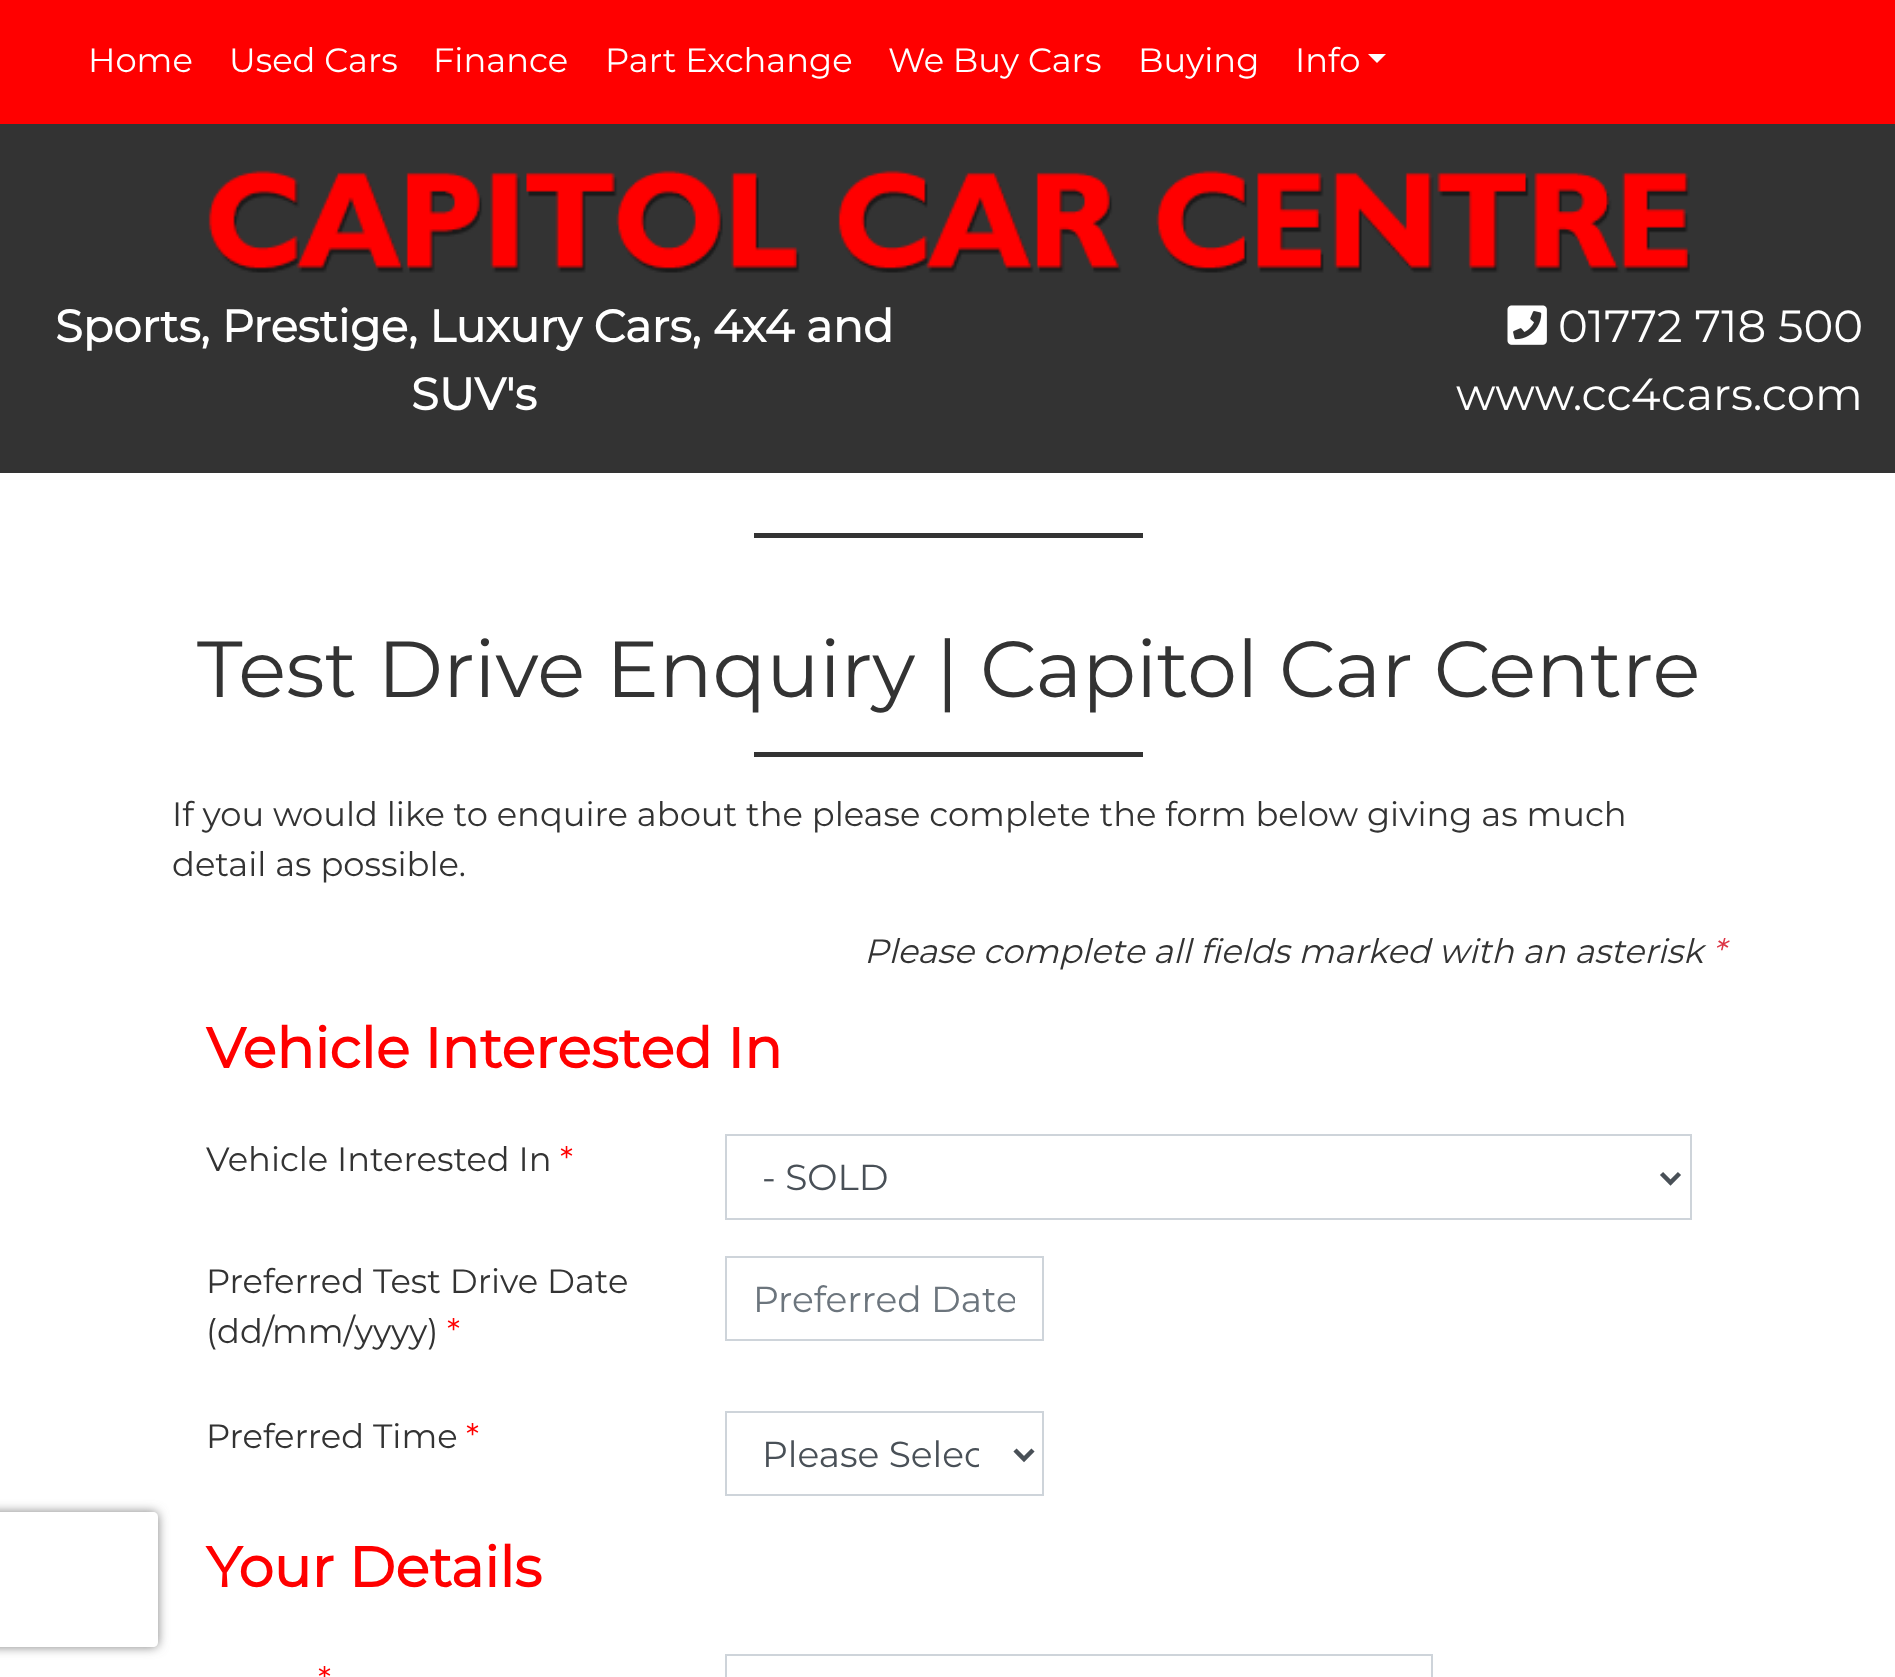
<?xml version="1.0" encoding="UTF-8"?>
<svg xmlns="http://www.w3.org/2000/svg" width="1895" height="1677">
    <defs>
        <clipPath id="clip1"><rect x="754" y="1278" width="261" height="43"/></clipPath>
        <clipPath id="clip2"><rect x="763" y="1431" width="216" height="47"/></clipPath>
        <clipPath id="clip3"><path d="M 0 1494 H 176 V 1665 H 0 Z M -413 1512 H 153 C 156 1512 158 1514 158 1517 V 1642 C 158 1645 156 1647 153 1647 H -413 C -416 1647 -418 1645 -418 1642 V 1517 C -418 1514 -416 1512 -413 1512 Z" clip-rule="evenodd"/></clipPath>
        <filter id="blur1" x="-50%" y="-200%" width="200%" height="500%"><feGaussianBlur stdDeviation="5.5"/></filter>
    </defs>
    <rect width="100%" height="100%" fill="#FFFFFF"/>
    <rect x="0" y="0" width="1895" height="124" fill="#FF0000"/>
    <text x="88" y="72" font-family="Montserrat" font-size="33.75" fill="#FFFFFF">Home</text>
    <text x="229" y="72" font-family="Montserrat" font-size="33.75" fill="#FFFFFF">Used Cars</text>
    <text x="433" y="72" font-family="Montserrat" font-size="33.75" fill="#FFFFFF">Finance</text>
    <text x="605" y="72" font-family="Montserrat" font-size="33.75" fill="#FFFFFF">Part Exchange</text>
    <text x="888" y="72" font-family="Montserrat" font-size="33.75" fill="#FFFFFF">We Buy Cars</text>
    <text x="1138" y="72" font-family="Montserrat" font-size="33.75" fill="#FFFFFF">Buying</text>
    <text x="1295" y="72" font-family="Montserrat" font-size="33.75" fill="#FFFFFF">Info</text>
    <path d="M 1368 54 H 1386 L 1377 63 Z" fill="#FFFFFF"/>
    <rect x="0" y="124" width="1895" height="349" fill="#333333"/>
    <image x="208" y="170" width="1482" height="103" href="img_01.png"/>
    <text x="55" y="342" font-family="Montserrat" font-size="45" font-weight="700" fill="#FFFFFF">Sports, Prestige, Luxury Cars, 4x4 and</text>
    <text x="411" y="410" font-family="Montserrat" font-size="45" font-weight="700" fill="#FFFFFF">SUV's</text>
    <image x="1507" y="305" width="40" height="40" href="img_02.png"/>
    <text x="1558" y="342" font-family="Montserrat" font-size="45" fill="#FFFFFF">01772 718 500</text>
    <text x="1456" y="410" font-family="Montserrat" font-size="45" fill="#FFFFFF">www.cc4cars.com</text>
    <rect x="754" y="533" width="389" height="5" fill="#333333"/>
    <text x="197" y="697" font-family="Montserrat" font-size="79.25" fill="#333333">Test Drive Enquiry | Capitol Car Centre</text>
    <rect x="754" y="752" width="389" height="5" fill="#333333"/>
    <text font-family="Montserrat" font-size="33.75" fill="#333333">
        <tspan x="172" y="826">If you would like to enquire about the please complete the form below giving as much</tspan>
        <tspan x="172" y="876">detail as possible.</tspan>
    </text>
    <text x="864" y="963" font-family="Montserrat" font-size="33.75" font-style="italic" fill="#333333">Please complete all fields marked with an asterisk</text>
    <text x="1712" y="963" font-family="Montserrat" font-size="33.75" font-style="italic" fill="#DC3545">*</text>
    <text x="206" y="1068" font-family="Montserrat" font-size="56.25" font-weight="700" fill="#FF0000">Vehicle Interested In</text>
    <text x="206" y="1171" font-family="Montserrat" font-size="33.75" fill="#333333">Vehicle Interested In</text>
    <text x="560" y="1171" font-family="Montserrat" font-size="33.75" fill="#FF0000">*</text>
    <rect x="726" y="1135" width="965" height="84" fill="none" stroke="#CED4DA" stroke-width="2"/>
    <path d="M 1661.5 1173.5 L 1670.5 1182.5 L 1679.5 1173.5" fill="none" stroke="#495057" stroke-width="4.5"/>
    <text x="762" y="1190" font-family="Montserrat" font-size="36" fill="#495057">- SOLD</text>
    <text font-family="Montserrat" font-size="33.75" fill="#333333">
        <tspan x="206" y="1293">Preferred Test Drive Date</tspan>
        <tspan x="206" y="1343">(dd/mm/yyyy)</tspan>
    </text>
    <text x="447" y="1343" font-family="Montserrat" font-size="33.75" fill="#FF0000">*</text>
    <rect x="726" y="1257" width="317" height="83" fill="none" stroke="#CED4DA" stroke-width="2"/>
    <g clip-path="url(#clip1)">
        <text x="753" y="1312" font-family="Montserrat" font-size="36" fill="#6C757D">Preferred Date</text>
    </g>
    <text x="206" y="1448" font-family="Montserrat" font-size="33.75" fill="#333333">Preferred Time</text>
    <text x="466" y="1448" font-family="Montserrat" font-size="33.75" fill="#FF0000">*</text>
    <rect x="726" y="1412" width="317" height="83" fill="none" stroke="#CED4DA" stroke-width="2"/>
    <path d="M 1015 1450 L 1024 1459 L 1033 1450" fill="none" stroke="#495057" stroke-width="4.5"/>
    <g clip-path="url(#clip2)">
        <text x="762" y="1467" font-family="Montserrat" font-size="36" fill="#495057">Please Selec</text>
    </g>
    <g clip-path="url(#clip3)">
        <rect x="-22" y="1512" width="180" height="135" rx="5" fill="#808080" filter="url(#blur1)"/>
    </g>
    <text x="206" y="1587" font-family="Montserrat" font-size="56.25" font-weight="700" fill="#FF0000">Your Details</text>
    <text x="318" y="1691" font-family="Montserrat" font-size="33.75" fill="#FF0000">*</text>
    <rect x="726" y="1655" width="706" height="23" fill="none" stroke="#CED4DA" stroke-width="2"/>
</svg>
